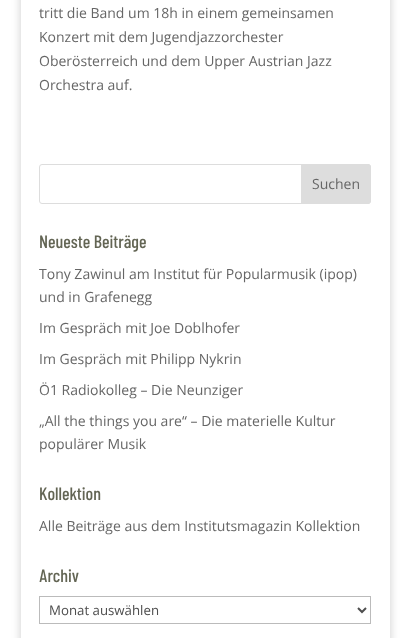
<?xml version="1.0" encoding="UTF-8"?>
<svg xmlns="http://www.w3.org/2000/svg" width="410" height="638">
    <defs>
        <clipPath id="clip1"><path d="M 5 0 H 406 V 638 H 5 Z M 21 -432 H 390 V 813 H 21 Z" clip-rule="evenodd"/></clipPath>
        <filter id="blur1" x="-50%" y="-200%" width="200%" height="500%"><feGaussianBlur stdDeviation="5"/></filter>
    </defs>
    <rect width="100%" height="100%" fill="#FFFFFF"/>
    <g clip-path="url(#clip1)">
        <rect x="21" y="-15" width="369" height="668" fill="#000000" fill-opacity="0.2" filter="url(#blur1)"/>
    </g>
    <text font-family="Open Sans" font-size="14" fill="#666666">
        <tspan x="39" y="18">tritt die Band um 18h in einem gemeinsamen</tspan>
        <tspan x="39" y="42">Konzert mit dem Jugendjazzorchester</tspan>
        <tspan x="39" y="66">Oberösterreich und dem Upper Austrian Jazz</tspan>
        <tspan x="39" y="90">Orchestra auf.</tspan>
    </text>
    <rect x="39.5" y="164.5" width="331" height="39" rx="2.5" fill="none" stroke="#DDDDDD"/>
    <path d="M 301.5 164.5 H 368 C 369.5 164.5 370.5 165.5 370.5 167 V 201 C 370.5 202.5 369.5 203.5 368 203.5 H 301.5 Z" fill="#DDDDDD" stroke="#DDDDDD"/>
    <text x="312" y="189" font-family="Open Sans" font-size="14" fill="#666666">Suchen</text>
    <text x="39" y="248" font-family="Barlow Condensed" font-size="18" font-weight="500" fill="#636554">Neueste Beiträge</text>
    <text font-family="Open Sans" font-size="14" fill="#666666">
        <tspan x="39" y="279">Tony Zawinul am Institut für Popularmusik (ipop)</tspan>
        <tspan x="39" y="302">und in Grafenegg</tspan>
    </text>
    <text x="39" y="333" font-family="Open Sans" font-size="14" fill="#666666">Im Gespräch mit Joe Doblhofer</text>
    <text x="39" y="364" font-family="Open Sans" font-size="14" fill="#666666">Im Gespräch mit Philipp Nykrin</text>
    <text x="39" y="395" font-family="Open Sans" font-size="14" fill="#666666">Ö1 Radiokolleg – Die Neunziger</text>
    <text font-family="Open Sans" font-size="14" fill="#666666">
        <tspan x="39" y="426">„All the things you are“ – Die materielle Kultur</tspan>
        <tspan x="39" y="449">populärer Musik</tspan>
    </text>
    <text x="39" y="500" font-family="Barlow Condensed" font-size="18" font-weight="500" fill="#636554">Kollektion</text>
    <text x="39" y="531" font-family="Open Sans" font-size="14" fill="#666666">Alle Beiträge aus dem Institutsmagazin Kollektion</text>
    <text x="39" y="582" font-family="Barlow Condensed" font-size="18" font-weight="500" fill="#636554">Archiv</text>
    <rect x="39.5" y="596.5" width="331" height="27" fill="none" stroke="#BBBBBB"/>
    <path d="M 358 608 L 362 612 L 366 608" fill="none" stroke="#4E4E4E" stroke-width="2"/>
    <text x="49" y="615" font-family="Open Sans" font-size="13.25" fill="#4E4E4E">Monat auswählen</text>
</svg>
